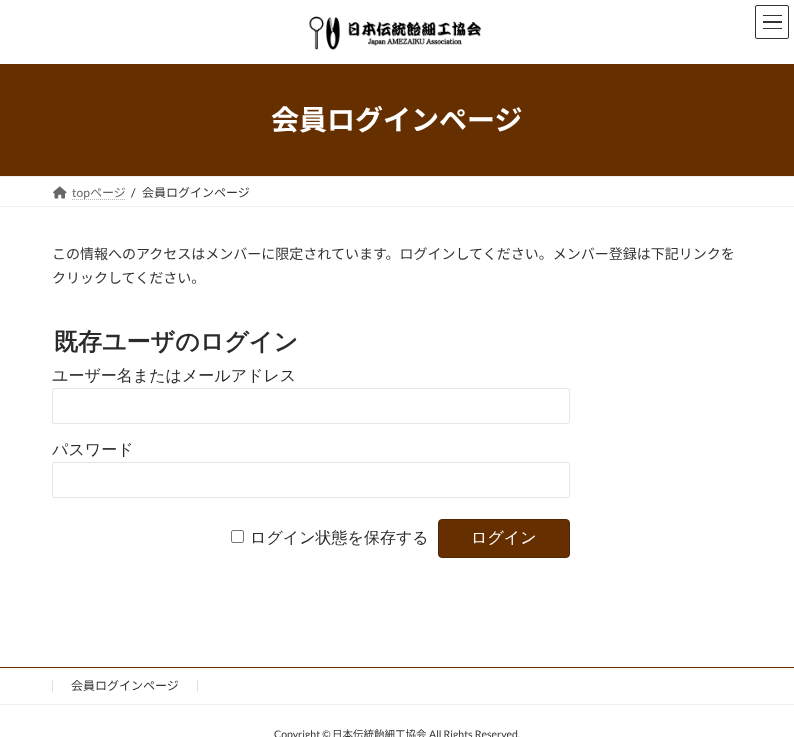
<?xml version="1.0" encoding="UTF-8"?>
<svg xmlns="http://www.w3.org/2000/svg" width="794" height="737">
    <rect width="100%" height="100%" fill="#FFFFFF"/>
    <image x="308" y="16" width="173" height="34" href="img_01.png"/>
    <rect x="763" y="15" width="19" height="1" fill="#333333"/>
    <rect x="763" y="21" width="19" height="2" fill="#333333"/>
    <rect x="763" y="28" width="19" height="1" fill="#333333"/>
    <rect x="755.5" y="5.5" width="33" height="33" rx="1.5" fill="none" stroke="#333333"/>
    <rect x="0" y="64" width="794" height="112" fill="#662F00"/>
    <text x="271" y="130" font-family="Noto Sans JP" font-size="28" font-weight="700" fill="#FFFFFF">会員ログインページ</text>
    <rect x="0" y="176" width="794" height="1" fill="#F0F0F0"/>
    <rect x="0" y="206" width="794" height="1" fill="#F0F0F0"/>
    <image x="53" y="186" width="14" height="13" href="img_02.png"/>
    <path d="M 72 199.5 H 125.5" fill="none" stroke="#B3B3B3" stroke-dasharray="1 1"/>
    <text x="72" y="197" font-family="Lato" font-size="12" fill="#666666">top</text>
    <text x="90" y="197" font-family="Noto Sans JP" font-size="12" fill="#666666">ページ</text>
    <text x="131" y="197" font-family="Lato" font-size="12" fill="#333333">/</text>
    <text x="142" y="197" font-family="Noto Sans JP" font-size="12" fill="#333333">会員ログインページ</text>
    <text font-family="Noto Sans JP" font-size="14" fill="#333333">
        <tspan x="52" y="259">この情報へのアクセスはメンバーに限定されています。ログインしてください。メンバー登録は下記リンクを</tspan>
        <tspan x="52" y="283">クリックしてください。</tspan>
    </text>
    <text x="54" y="350" font-family="WenQuanYi Zen Hei" font-size="24" font-weight="700" fill="#2B2B2B">既存ユーザのログイン</text>
    <text x="52" y="381" font-family="WenQuanYi Zen Hei" font-size="16" font-weight="500" fill="#2B2B2B">ユーザー名またはメールアドレス</text>
    <rect x="52.5" y="388.5" width="517" height="35" rx="1.5" fill="none" stroke="#E6E6E6"/>
    <text x="52" y="455" font-family="WenQuanYi Zen Hei" font-size="16" font-weight="500" fill="#2B2B2B">パスワード</text>
    <rect x="52.5" y="462.5" width="517" height="35" rx="1.5" fill="none" stroke="#E6E6E6"/>
    <rect x="231.5" y="530.5" width="12" height="12" rx="1.5" fill="none" stroke="#767676"/>
    <text x="250" y="543" font-family="WenQuanYi Zen Hei" font-size="16" font-weight="500" fill="#2B2B2B">ログイン状態を保存する</text>
    <rect x="438.5" y="519.5" width="131" height="38" rx="3.5" fill="#662F00" stroke="#522600"/>
    <text x="471" y="543" font-family="WenQuanYi Zen Hei" font-size="16" font-weight="500" fill="#FFFFFF">ログイン</text>
    <rect x="0" y="667" width="794" height="1" fill="#662F00"/>
    <rect x="0" y="704" width="794" height="1" fill="#F0F0F0"/>
    <rect x="197" y="680" width="1" height="12" fill="#E0E0E0"/>
    <rect x="52" y="680" width="1" height="12" fill="#E0E0E0"/>
    <text x="71" y="690" font-family="Noto Sans JP" font-size="12" fill="#333333">会員ログインページ</text>
    <text x="274" y="738" font-family="Lato" font-size="10.5" fill="#333333">Copyright ©</text>
    <text x="332" y="738" font-family="Noto Sans JP" font-size="10.5" fill="#333333">日本伝統飴細工協会</text>
    <text x="429" y="738" font-family="Lato" font-size="10.5" fill="#333333">All Rights Reserved.</text>
</svg>
